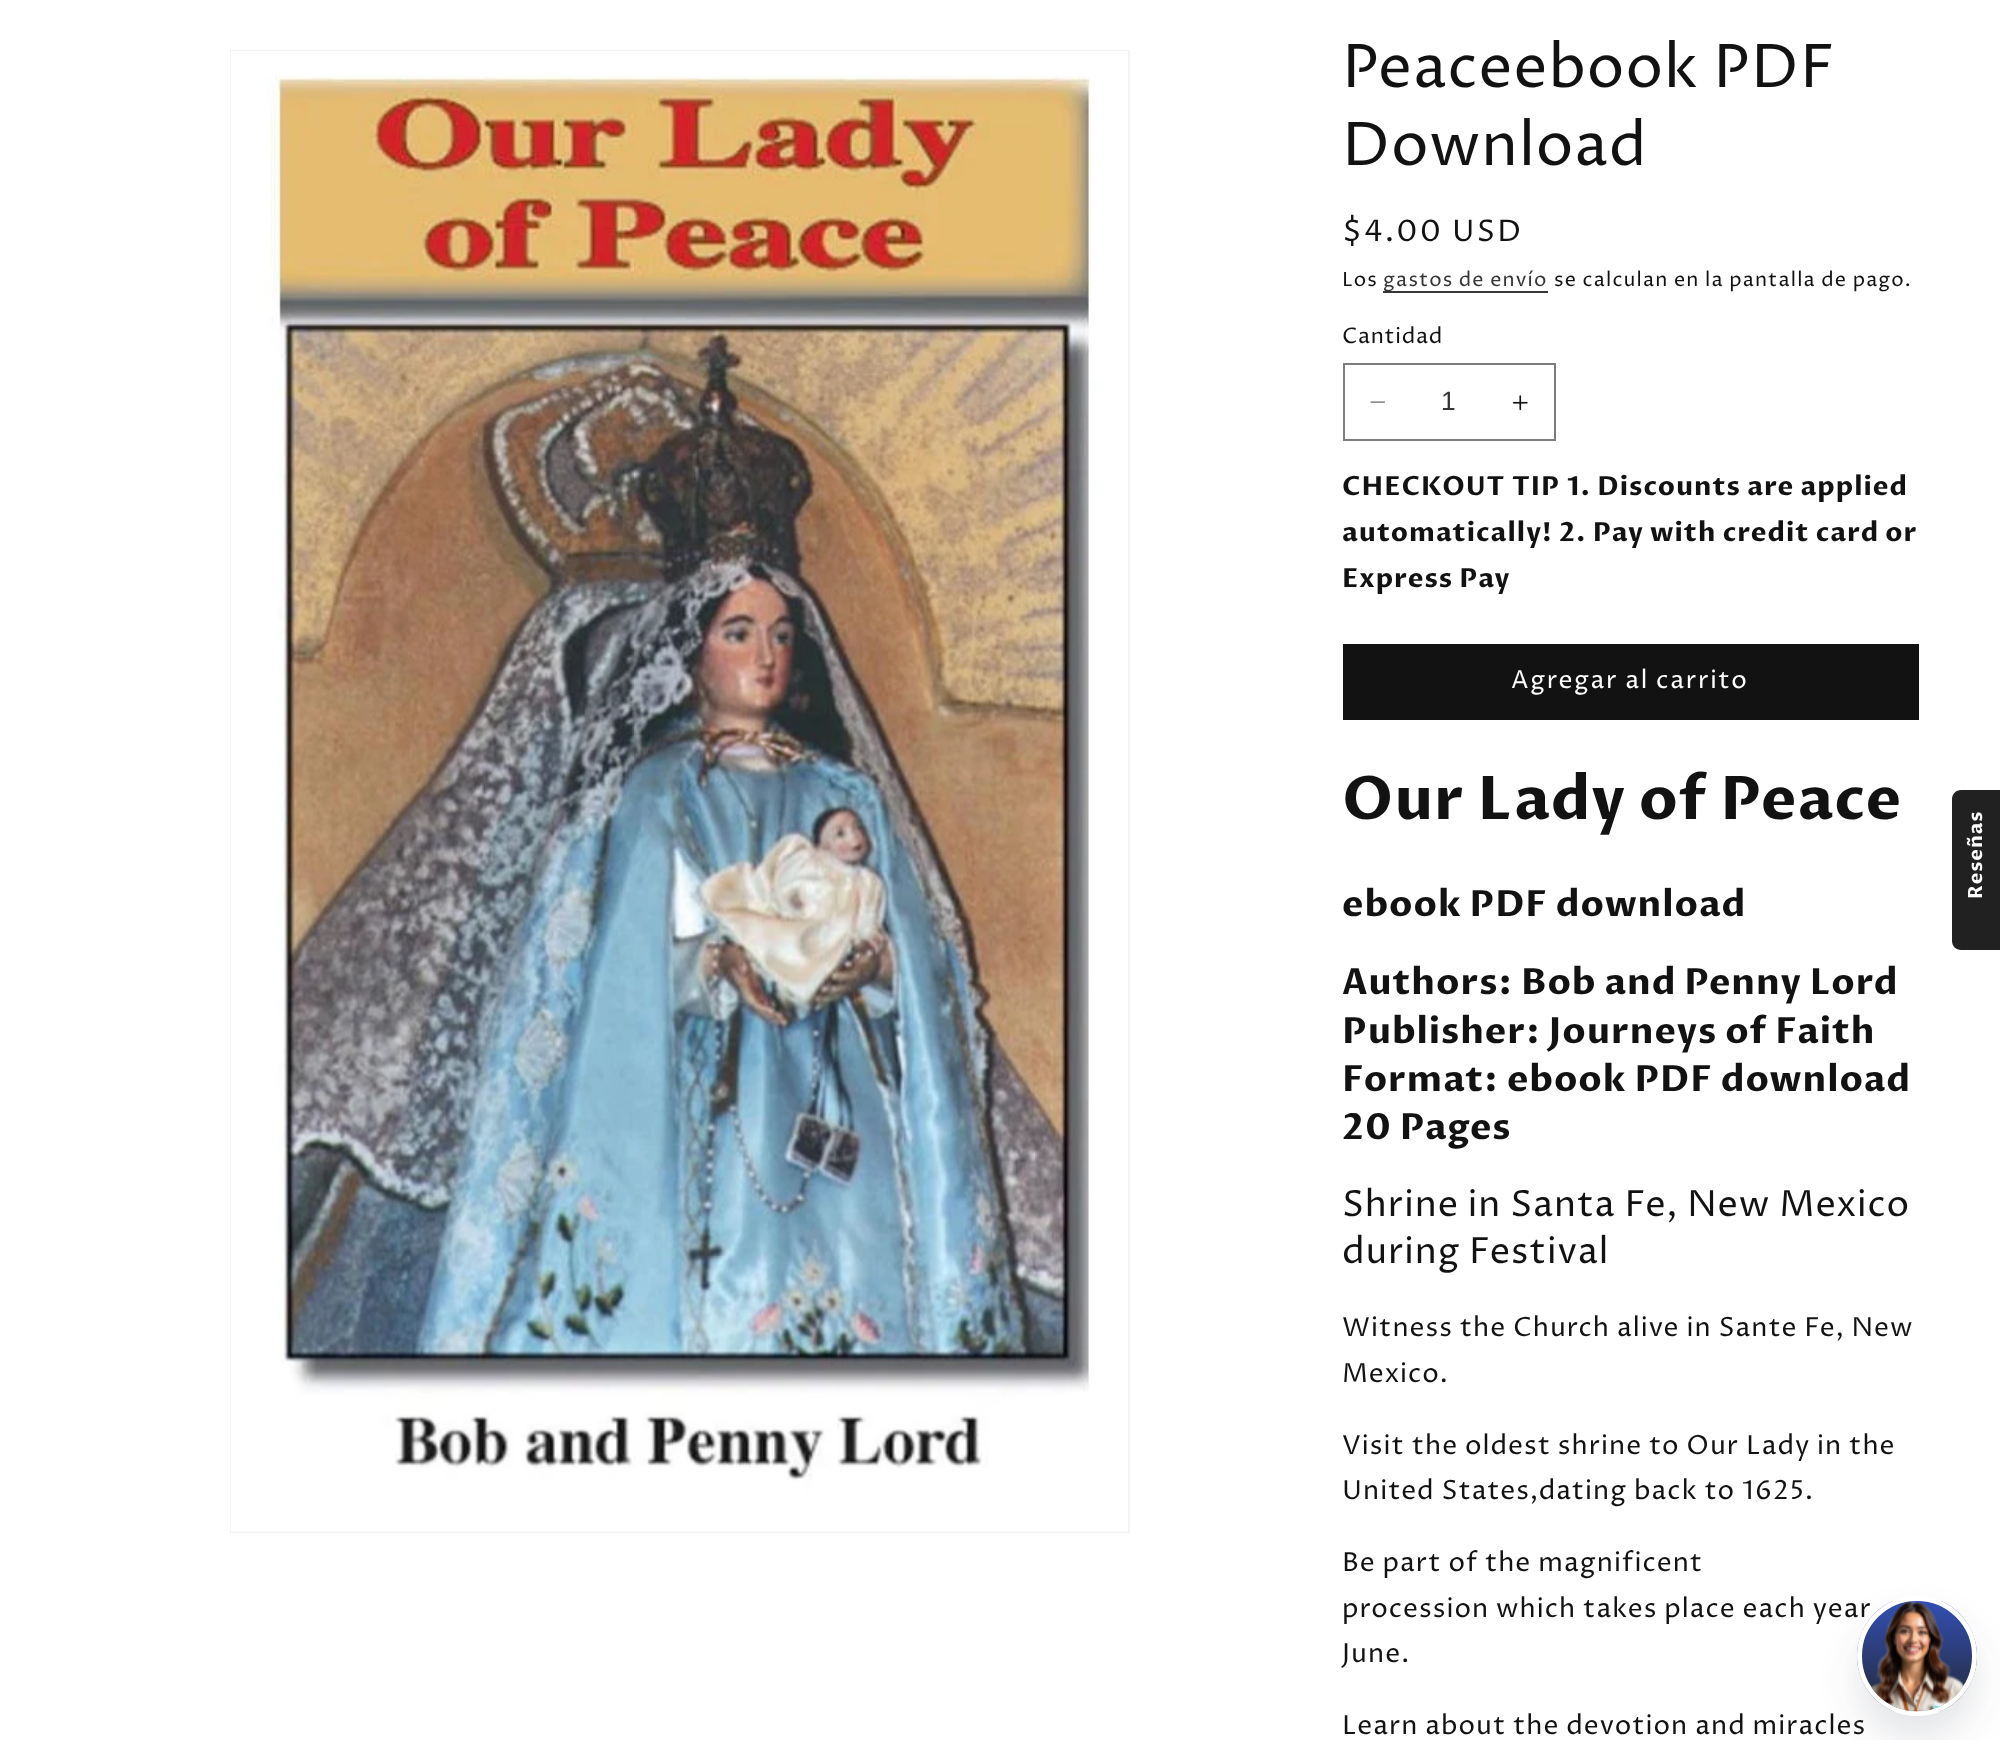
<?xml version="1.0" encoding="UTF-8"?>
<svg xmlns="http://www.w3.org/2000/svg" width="2000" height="1740">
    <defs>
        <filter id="blur1" x="-50%" y="-200%" width="200%" height="500%"><feGaussianBlur stdDeviation="18"/></filter>
        <clipPath id="clip1"><rect x="1857" y="1596" width="120" height="120" rx="60"/></clipPath>
        <linearGradient id="g1" gradientUnits="userSpaceOnUse" x1="1917" y1="1601" x2="1917" y2="1712"><stop offset="0" stop-color="#334FB4"/><stop offset="1" stop-color="#242833"/></linearGradient>
    </defs>
    <rect width="100%" height="100%" fill="#FFFFFF"/>
    <rect x="231" y="51" width="898" height="1481" fill="none" stroke="#F3F3F3" stroke-width="2"/>
    <image x="231" y="51" width="897" height="1481" href="img_01.png"/>
    <text font-family="Proza Libre" font-size="60" letter-spacing="0.9" fill="#121212">
        <tspan x="1342" y="87">Peaceebook PDF</tspan>
        <tspan x="1342" y="165">Download</tspan>
    </text>
    <text x="1342" y="241" font-family="Proza Libre" font-size="29.75" letter-spacing="2.25" fill="#121212">$4.00 USD</text>
    <text x="1342" y="286" font-family="Proza Libre" font-size="19.75" letter-spacing="1.15" fill="#121212">Los</text>
    <rect x="1383" y="291" width="165" height="2" fill="#363636"/>
    <text x="1383" y="286" font-family="Proza Libre" font-size="19.75" letter-spacing="1.15" fill="#353535">gastos de envío</text>
    <text x="1554" y="286" font-family="Proza Libre" font-size="19.75" letter-spacing="1.15" fill="#121212">se calculan en la pantalla de pago.</text>
    <text x="1342" y="343" font-family="Proza Libre" font-size="21.5" letter-spacing="0.75" fill="#121212">Cantidad</text>
    <image x="1370" y="401" width="15" height="2" href="img_02.png"/>
    <image x="1512" y="395" width="16" height="16" href="img_03.png"/>
    <rect x="1344" y="364" width="211" height="76" fill="none" stroke="#7D7D7D" stroke-width="2"/>
    <text x="1441" y="410" font-family="Liberation Sans" font-size="26.4" fill="#353535">1</text>
    <text x="1342" y="495" font-family="Proza Libre" font-size="26.4" font-weight="700" letter-spacing="1" fill="#121212">CHECKOUT</text>
    <text x="1512" y="495" font-family="Proza Libre" font-size="26.4" font-weight="700" letter-spacing="1" fill="#121212">TIP</text>
    <text x="1567" y="495" font-family="Proza Libre" font-size="26.4" font-weight="700" letter-spacing="1" fill="#121212">1. Discounts are applied</text>
    <text font-family="Proza Libre" font-size="26.4" font-weight="700" letter-spacing="1" fill="#121212">
        <tspan x="1342" y="541">automatically! 2. Pay with credit card or</tspan>
        <tspan x="1342" y="587">Express Pay</tspan>
    </text>
    <rect x="1343" y="644" width="576" height="76" fill="#121212"/>
    <text x="1511" y="688" font-family="Proza Libre" font-size="24.75" letter-spacing="1.6" fill="#FFFFFF">Agregar al carrito</text>
    <text x="1342" y="819" font-family="Proza Libre" font-size="60" font-weight="700" letter-spacing="0.9" fill="#121212">Our Lady of Peace</text>
    <text x="1342" y="916" font-family="Proza Libre" font-size="36" font-weight="700" letter-spacing="0.9" fill="#121212">ebook PDF download</text>
    <text font-family="Proza Libre" font-size="36" font-weight="700" letter-spacing="0.9" fill="#121212">
        <tspan x="1342" y="994">Authors: Bob and Penny Lord</tspan>
        <tspan x="1342" y="1043">Publisher: Journeys of Faith</tspan>
        <tspan x="1342" y="1091">Format: ebook PDF download</tspan>
        <tspan x="1342" y="1139">20 Pages</tspan>
    </text>
    <text font-family="Proza Libre" font-size="36" letter-spacing="0.9" fill="#121212">
        <tspan x="1342" y="1216">Shrine in Santa Fe, New Mexico</tspan>
        <tspan x="1342" y="1263">during Festival</tspan>
    </text>
    <text font-family="Proza Libre" font-size="26.4" letter-spacing="1" fill="#121212">
        <tspan x="1342" y="1336">Witness the Church alive in Sante Fe, New</tspan>
        <tspan x="1342" y="1382">Mexico.</tspan>
    </text>
    <text font-family="Proza Libre" font-size="26.4" letter-spacing="1" fill="#121212">
        <tspan x="1342" y="1454">Visit the oldest shrine to Our Lady in the</tspan>
        <tspan x="1342" y="1499">United States,dating back to 1625.</tspan>
    </text>
    <text font-family="Proza Libre" font-size="26.4" letter-spacing="1" fill="#121212">
        <tspan x="1342" y="1571">Be part of the magnificent</tspan>
        <tspan x="1342" y="1617">procession which takes place each year</tspan>
        <tspan x="1342" y="1662">June.</tspan>
    </text>
    <text x="1342" y="1734" font-family="Proza Libre" font-size="26.4" letter-spacing="1" fill="#121212">Learn about the devotion and miracles</text>
    <path d="M 1952 941 V 799 C 1952 794 1956 790 1961 790 H 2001 V 950 H 1961 C 1956 950 1952 946 1952 941 Z" fill="#212121"/>
    <text x="1982" y="899" transform="rotate(-90 1982 899)" font-family="Proza Libre" font-size="19.5" font-weight="700" letter-spacing="1" fill="#FFFFFF">Reseñas</text>
    <rect x="1857" y="1620" width="120" height="120" rx="60" fill="#545F6F" fill-opacity="0.16" filter="url(#blur1)"/>
    <g clip-path="url(#clip1)">
        <rect x="1857" y="1601" width="120" height="111" fill="url(#g1)"/>
    </g>
    <circle cx="1917" cy="1656" r="57.5" fill="none" stroke="#FFFFFF" stroke-width="5"/>
    <image x="1870" y="1601" width="94" height="111" href="img_04.png"/>
</svg>
